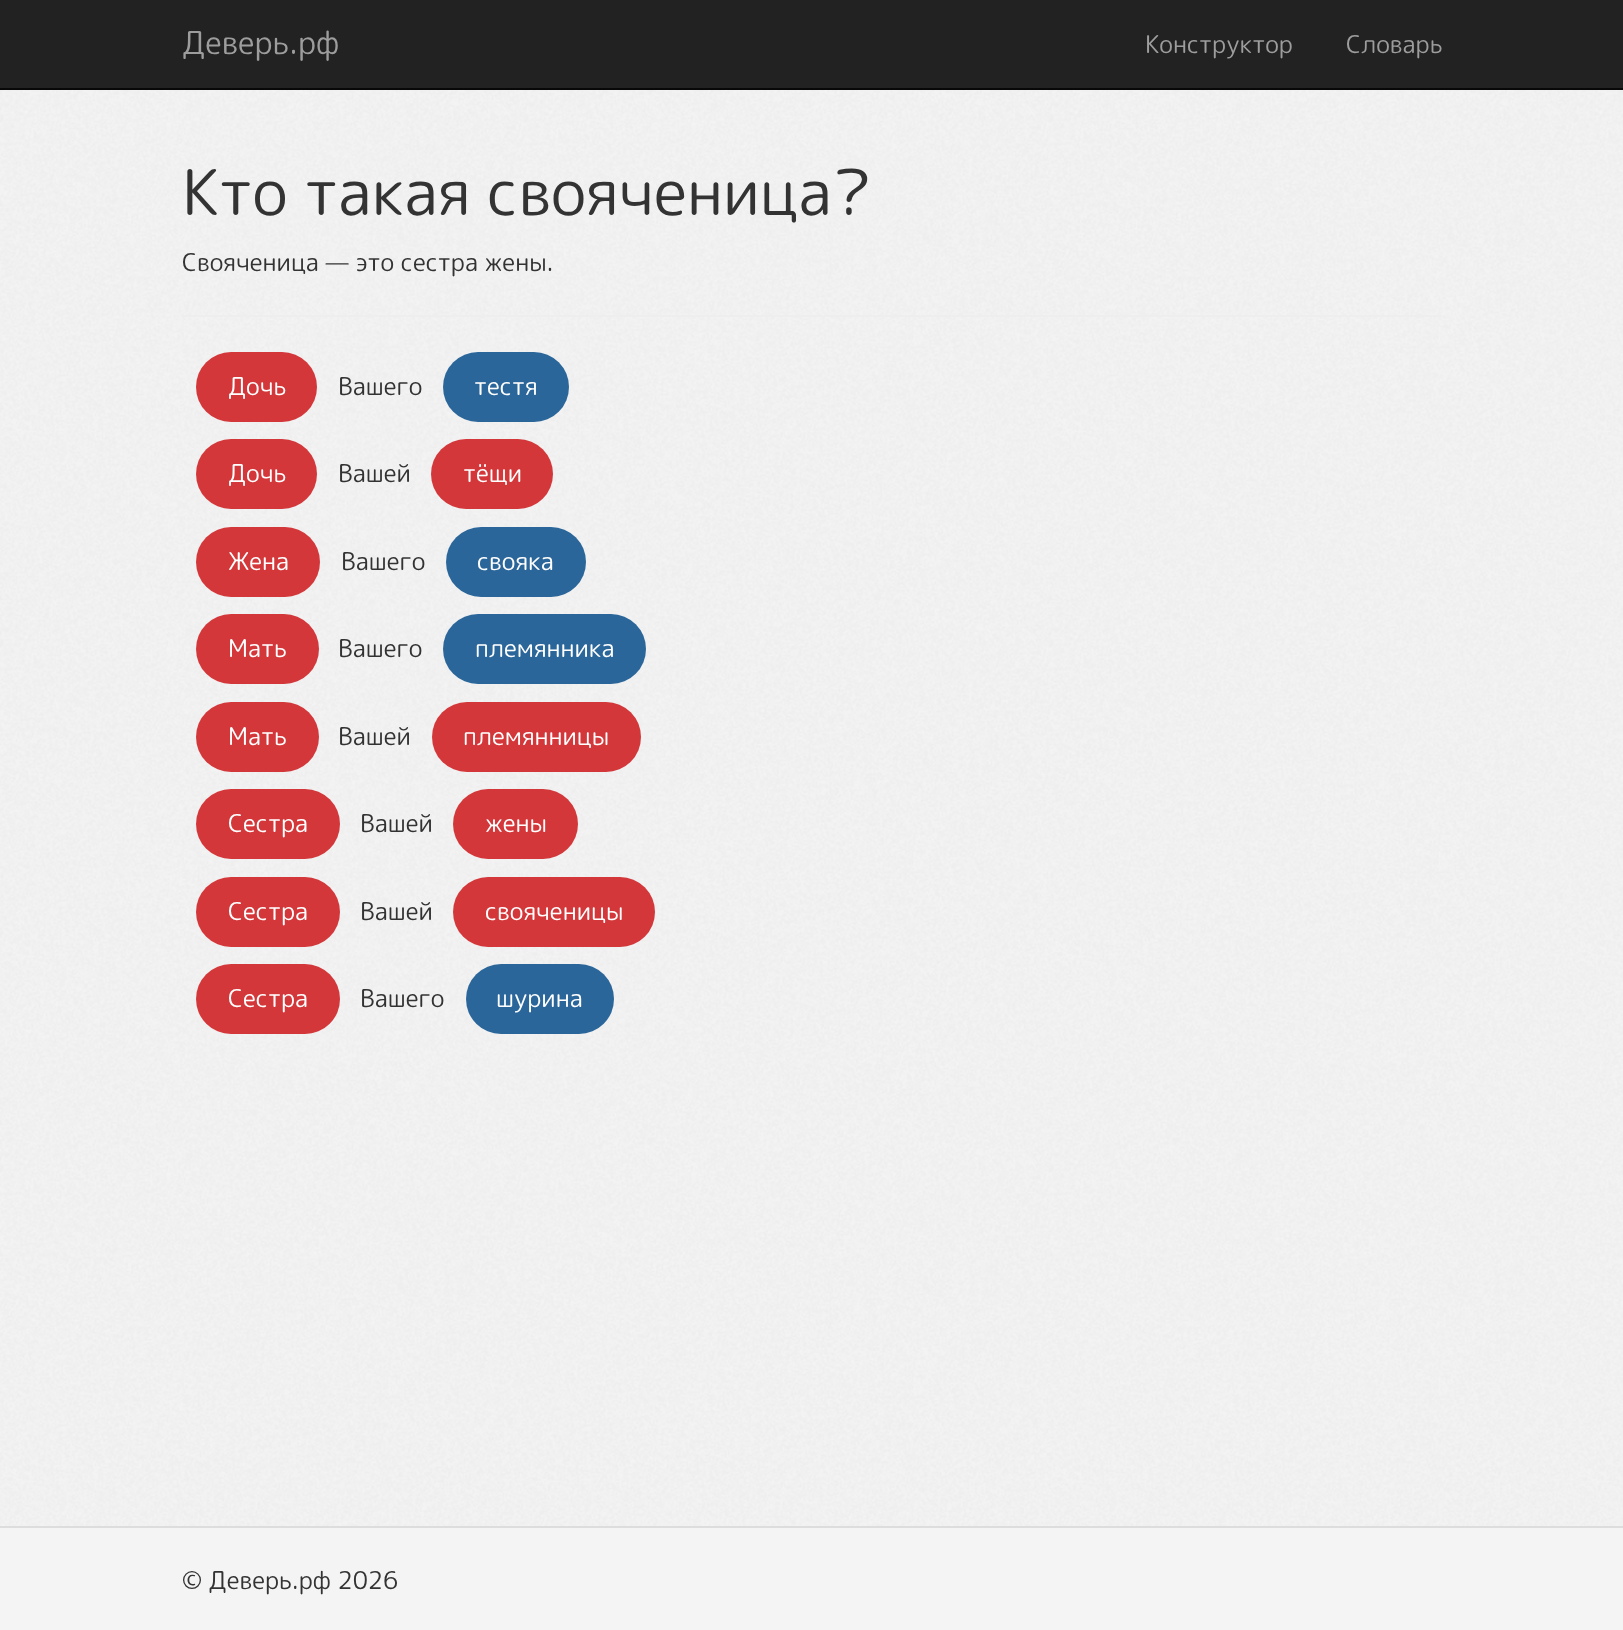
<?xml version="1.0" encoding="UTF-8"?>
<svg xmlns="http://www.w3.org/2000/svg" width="1623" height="1630">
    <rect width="100%" height="100%" fill="#F4F4F4"/>
    <image x="0" y="90" width="1623" height="1436" href="img_01.png"/>
    <rect x="0" y="0" width="1623" height="88" fill="#222222"/>
    <rect x="0" y="88" width="1623" height="2" fill="#080808"/>
    <text x="182" y="54" font-family="'Rounded Mplus 1c'" font-size="31.5" fill="#9D9D9D">Деверь.рф</text>
    <text x="1145" y="53" font-family="'Rounded Mplus 1c'" font-size="24.5" fill="#9D9D9D">Конструктор</text>
    <text x="1346" y="53" font-family="'Rounded Mplus 1c'" font-size="24.5" fill="#9D9D9D">Словарь</text>
    <text x="182" y="215" font-family="'Rounded Mplus 1c'" font-size="63" fill="#333333">Кто такая свояченица?</text>
    <text x="182" y="271" font-family="'Rounded Mplus 1c'" font-size="24.5" fill="#333333">Свояченица — это сестра жены.</text>
    <rect x="182" y="315" width="1260" height="2" fill="#EEEEEE"/>
    <rect x="196" y="352" width="121" height="70" rx="35" fill="#D3373A"/>
    <text x="228" y="395" font-family="'Rounded Mplus 1c'" font-size="24.5" fill="#FFFFFF">Дочь</text>
    <text x="338" y="395" font-family="'Rounded Mplus 1c'" font-size="24.5" fill="#333333">Вашего</text>
    <rect x="443" y="352" width="126" height="70" rx="35" fill="#2B669A"/>
    <text x="474" y="395" font-family="'Rounded Mplus 1c'" font-size="24.5" fill="#FFFFFF">тестя</text>
    <rect x="196" y="439" width="121" height="70" rx="35" fill="#D3373A"/>
    <text x="228" y="482" font-family="'Rounded Mplus 1c'" font-size="24.5" fill="#FFFFFF">Дочь</text>
    <text x="338" y="482" font-family="'Rounded Mplus 1c'" font-size="24.5" fill="#333333">Вашей</text>
    <rect x="431" y="439" width="122" height="70" rx="35" fill="#D3373A"/>
    <text x="463" y="482" font-family="'Rounded Mplus 1c'" font-size="24.5" fill="#FFFFFF">тёщи</text>
    <rect x="196" y="527" width="124" height="70" rx="35" fill="#D3373A"/>
    <text x="228" y="570" font-family="'Rounded Mplus 1c'" font-size="24.5" fill="#FFFFFF">Жена</text>
    <text x="341" y="570" font-family="'Rounded Mplus 1c'" font-size="24.5" fill="#333333">Вашего</text>
    <rect x="446" y="527" width="140" height="70" rx="35" fill="#2B669A"/>
    <text x="477" y="570" font-family="'Rounded Mplus 1c'" font-size="24.5" fill="#FFFFFF">свояка</text>
    <rect x="196" y="614" width="123" height="70" rx="35" fill="#D3373A"/>
    <text x="228" y="657" font-family="'Rounded Mplus 1c'" font-size="24.5" fill="#FFFFFF">Мать</text>
    <text x="338" y="657" font-family="'Rounded Mplus 1c'" font-size="24.5" fill="#333333">Вашего</text>
    <rect x="443" y="614" width="203" height="70" rx="35" fill="#2B669A"/>
    <text x="475" y="657" font-family="'Rounded Mplus 1c'" font-size="24.5" fill="#FFFFFF">племянника</text>
    <rect x="196" y="702" width="123" height="70" rx="35" fill="#D3373A"/>
    <text x="228" y="745" font-family="'Rounded Mplus 1c'" font-size="24.5" fill="#FFFFFF">Мать</text>
    <text x="338" y="745" font-family="'Rounded Mplus 1c'" font-size="24.5" fill="#333333">Вашей</text>
    <rect x="432" y="702" width="209" height="70" rx="35" fill="#D3373A"/>
    <text x="463" y="745" font-family="'Rounded Mplus 1c'" font-size="24.5" fill="#FFFFFF">племянницы</text>
    <rect x="196" y="789" width="144" height="70" rx="35" fill="#D3373A"/>
    <text x="228" y="832" font-family="'Rounded Mplus 1c'" font-size="24.5" fill="#FFFFFF">Сестра</text>
    <text x="360" y="832" font-family="'Rounded Mplus 1c'" font-size="24.5" fill="#333333">Вашей</text>
    <rect x="453" y="789" width="125" height="70" rx="35" fill="#D3373A"/>
    <text x="485" y="832" font-family="'Rounded Mplus 1c'" font-size="24.5" fill="#FFFFFF">жены</text>
    <rect x="196" y="877" width="144" height="70" rx="35" fill="#D3373A"/>
    <text x="228" y="920" font-family="'Rounded Mplus 1c'" font-size="24.5" fill="#FFFFFF">Сестра</text>
    <text x="360" y="920" font-family="'Rounded Mplus 1c'" font-size="24.5" fill="#333333">Вашей</text>
    <rect x="453" y="877" width="202" height="70" rx="35" fill="#D3373A"/>
    <text x="485" y="920" font-family="'Rounded Mplus 1c'" font-size="24.5" fill="#FFFFFF">свояченицы</text>
    <rect x="196" y="964" width="144" height="70" rx="35" fill="#D3373A"/>
    <text x="228" y="1007" font-family="'Rounded Mplus 1c'" font-size="24.5" fill="#FFFFFF">Сестра</text>
    <text x="360" y="1007" font-family="'Rounded Mplus 1c'" font-size="24.5" fill="#333333">Вашего</text>
    <rect x="466" y="964" width="148" height="70" rx="35" fill="#2B669A"/>
    <text x="496" y="1007" font-family="'Rounded Mplus 1c'" font-size="24.5" fill="#FFFFFF">шурина</text>
    <rect x="0" y="1526" width="1623" height="2" fill="#DDDDDD"/>
    <text x="182" y="1589" font-family="'Rounded Mplus 1c'" font-size="24.5" fill="#333333">© Деверь.рф 2026</text>
</svg>
